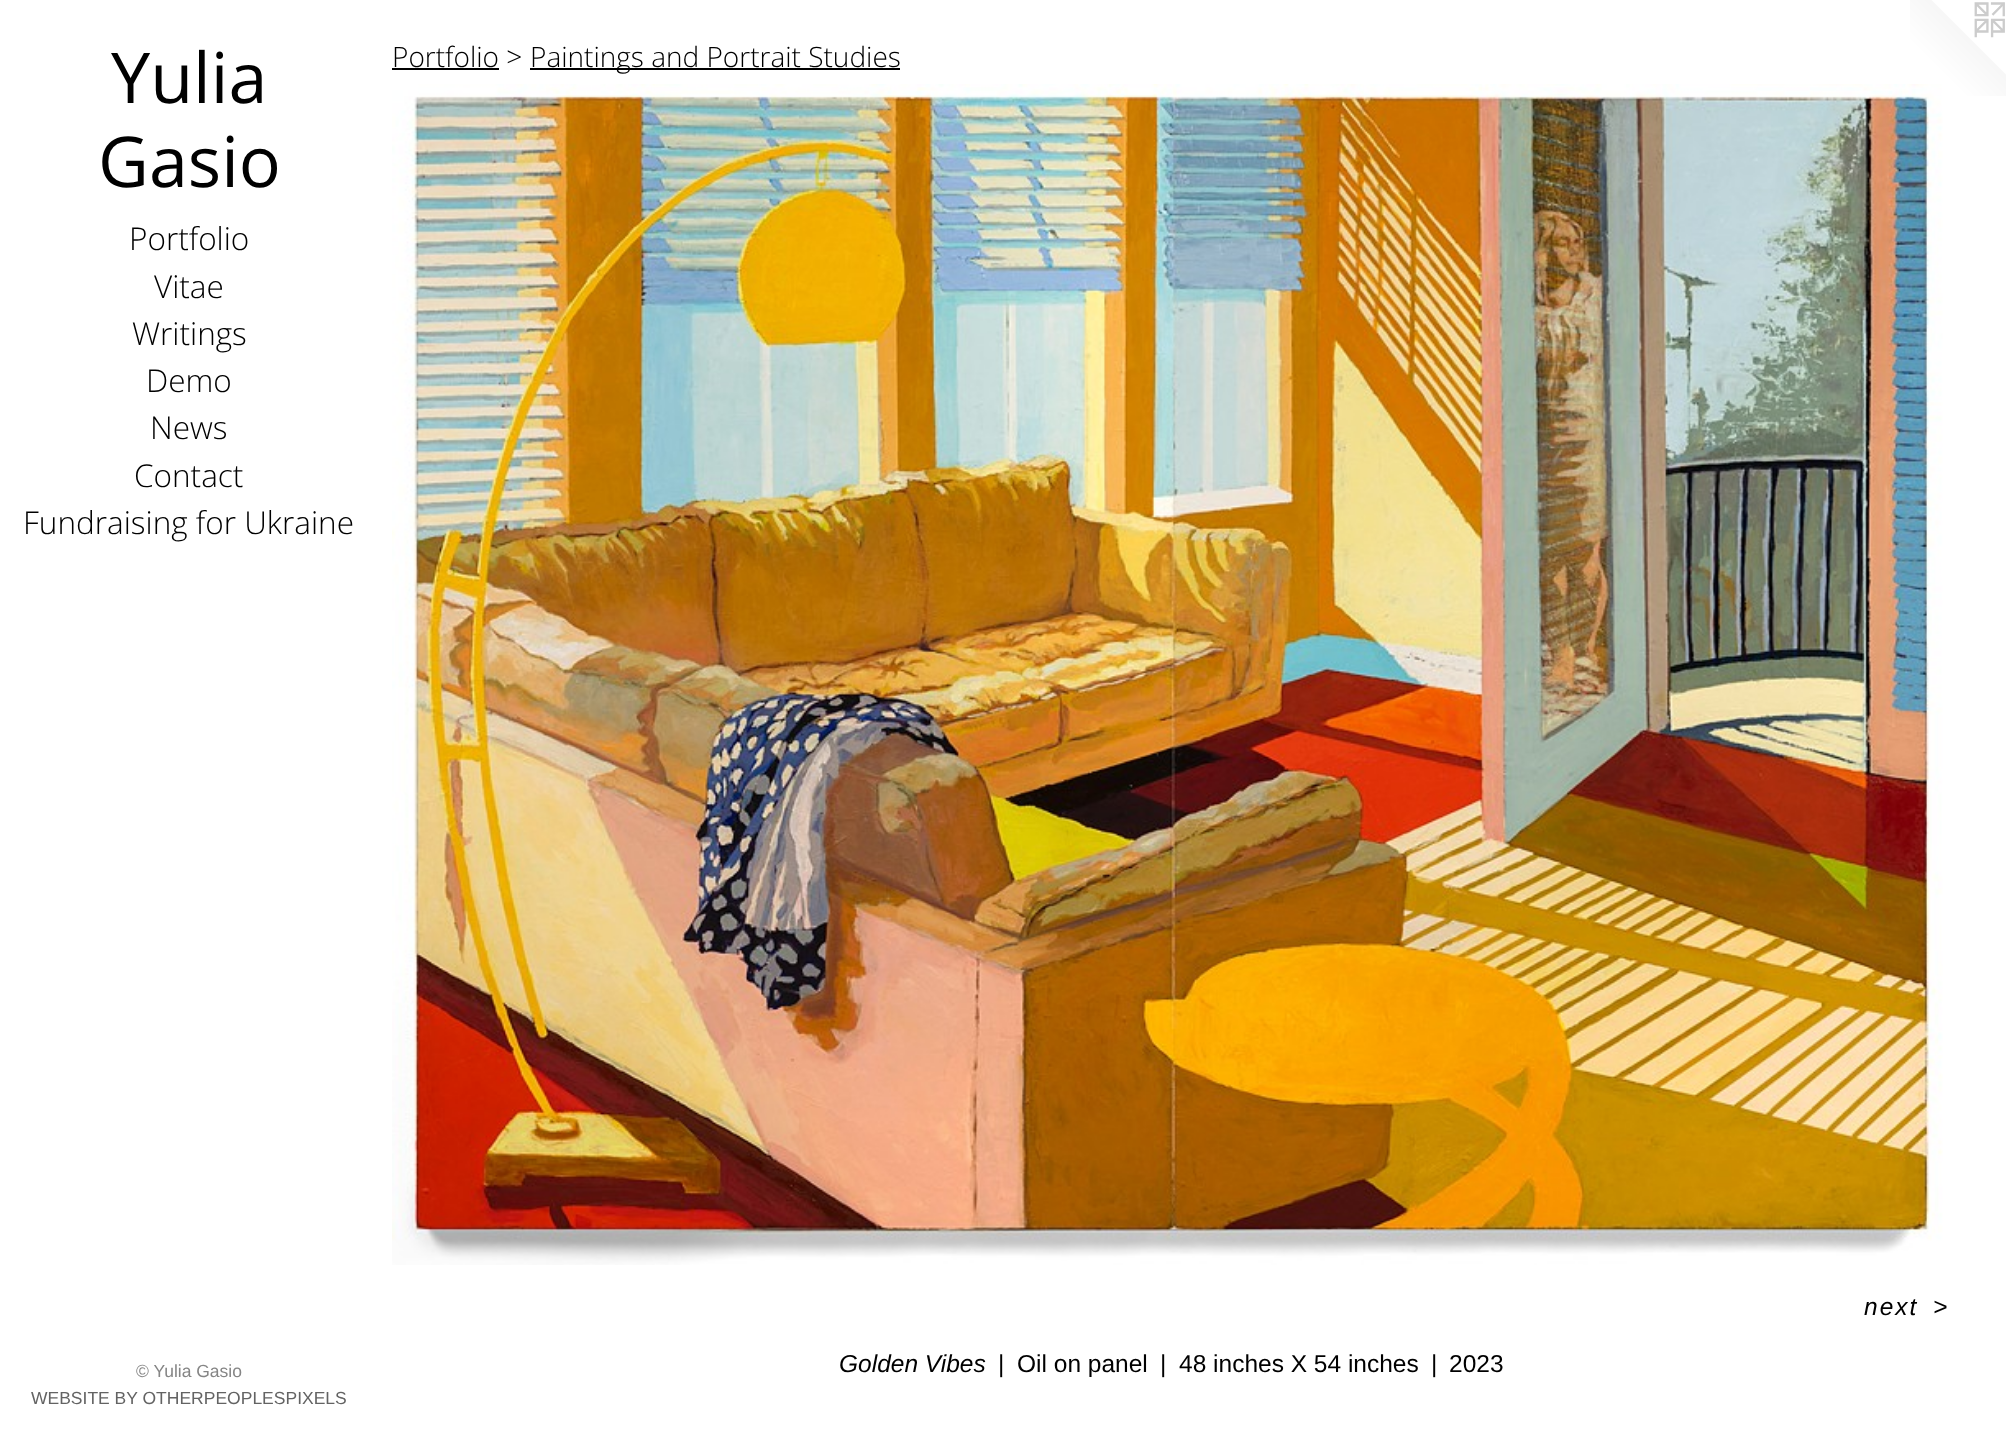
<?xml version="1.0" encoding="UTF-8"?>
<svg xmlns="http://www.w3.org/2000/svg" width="2006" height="1450">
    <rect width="100%" height="100%" fill="#FFFFFF"/>
    <text x="111" y="103" font-family="Open Sans" font-size="70" fill="#000000">Yulia</text>
    <text x="98" y="187" font-family="Open Sans" font-size="70" fill="#000000">Gasio</text>
    <text x="129" y="250" font-family="Open Sans" font-size="31.5" font-weight="300" fill="#000000">Portfolio</text>
    <text x="154" y="298" font-family="Open Sans" font-size="31.5" font-weight="300" fill="#000000">Vitae</text>
    <text x="132" y="345" font-family="Open Sans" font-size="31.5" font-weight="300" fill="#000000">Writings</text>
    <text x="146" y="392" font-family="Open Sans" font-size="31.5" font-weight="300" fill="#000000">Demo</text>
    <text x="150" y="439" font-family="Open Sans" font-size="31.5" font-weight="300" fill="#000000">News</text>
    <text x="134" y="487" font-family="Open Sans" font-size="31.5" font-weight="300" fill="#000000">Contact</text>
    <text x="23" y="534" font-family="Open Sans" font-size="31.5" font-weight="300" fill="#000000">Fundraising for Ukraine</text>
    <text x="136" y="1377" font-family="Liberation Sans" font-size="17.5" fill="#858585">© Yulia Gasio</text>
    <text x="31" y="1404" font-family="Liberation Sans" font-size="17.5" fill="#636363">WEBSITE BY OTHERPEOPLESPIXELS</text>
    <text x="392" y="67" font-family="Open Sans" font-size="28" font-weight="300" fill="#000000">Portfolio &gt;</text>
    <rect x="392" y="68" width="107" height="2" fill="#000000"/>
    <rect x="530" y="68" width="370" height="2" fill="#000000"/>
    <text x="530" y="67" font-family="Open Sans" font-size="28" font-weight="300" fill="#000000">Paintings and Portrait Studies</text>
    <image x="1910" y="0" width="96" height="96" href="img_02.png"/>
    <image x="392" y="84" width="1551" height="1181" href="img_01.png"/>
    <text x="1864" y="1315" font-family="Liberation Sans" font-size="24.5" font-style="italic" letter-spacing="2" fill="#000000">next</text>
    <text x="1933" y="1315" font-family="Liberation Sans" font-size="24.5" font-style="italic" letter-spacing="2" fill="#000000">&gt;</text>
    <text x="839" y="1372" font-family="Liberation Sans" font-size="24.5" font-style="italic" fill="#000000">Golden Vibes</text>
    <text x="998" y="1372" font-family="Liberation Sans" font-size="24.5" fill="#000000">|</text>
    <text x="1017" y="1372" font-family="Liberation Sans" font-size="24.5" fill="#000000">Oil on panel</text>
    <text x="1160" y="1372" font-family="Liberation Sans" font-size="24.5" fill="#000000">|</text>
    <text x="1179" y="1372" font-family="Liberation Sans" font-size="24.5" fill="#000000">48 inches X 54 inches</text>
    <text x="1431" y="1372" font-family="Liberation Sans" font-size="24.5" fill="#000000">|</text>
    <text x="1449" y="1372" font-family="Liberation Sans" font-size="24.5" fill="#000000">2023</text>
</svg>
